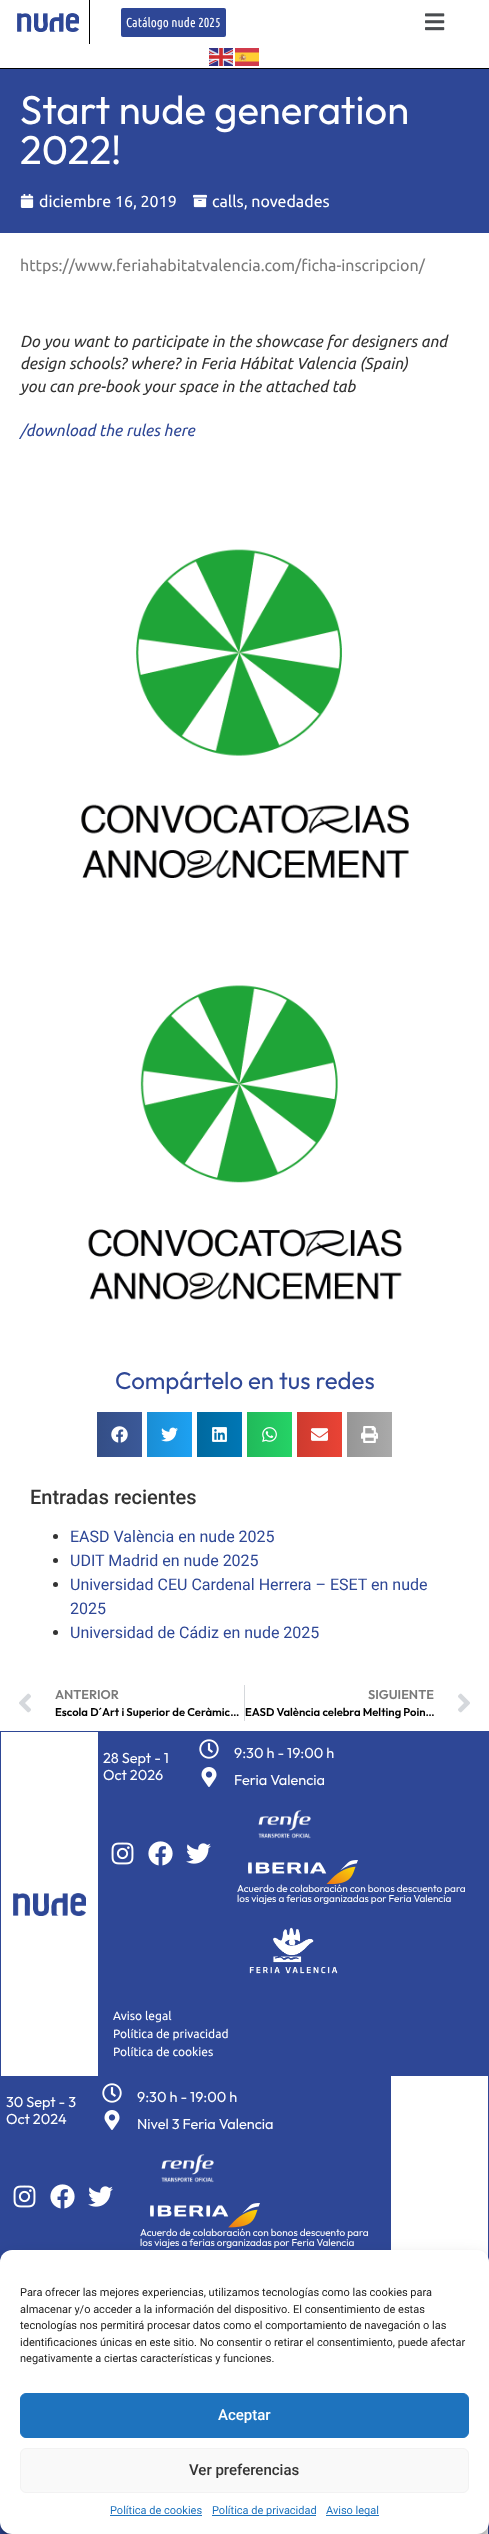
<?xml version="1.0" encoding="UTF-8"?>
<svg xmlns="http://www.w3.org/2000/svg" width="489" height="2534">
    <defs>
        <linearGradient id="g1" gradientUnits="userSpaceOnUse" x1="97" y1="1435" x2="142" y2="1435"><stop offset="0" stop-color="#344E86"/><stop offset="1" stop-color="#3B5998"/></linearGradient>
        <linearGradient id="g2" gradientUnits="userSpaceOnUse" x1="147" y1="1435" x2="192" y2="1435"><stop offset="0" stop-color="#1A8ED5"/><stop offset="1" stop-color="#1DA1F2"/></linearGradient>
        <linearGradient id="g3" gradientUnits="userSpaceOnUse" x1="197" y1="1435" x2="242" y2="1435"><stop offset="0" stop-color="#00699F"/><stop offset="1" stop-color="#0077B5"/></linearGradient>
        <linearGradient id="g4" gradientUnits="userSpaceOnUse" x1="247" y1="1435" x2="292" y2="1435"><stop offset="0" stop-color="#21BA5A"/><stop offset="1" stop-color="#25D366"/></linearGradient>
        <linearGradient id="g5" gradientUnits="userSpaceOnUse" x1="297" y1="1435" x2="342" y2="1435"><stop offset="0" stop-color="#CE3B2F"/><stop offset="1" stop-color="#EA4335"/></linearGradient>
        <linearGradient id="g6" gradientUnits="userSpaceOnUse" x1="347" y1="1435" x2="392" y2="1435"><stop offset="0" stop-color="#969696"/><stop offset="1" stop-color="#AAAAAA"/></linearGradient>
        <filter id="blur1" x="-50%" y="-200%" width="200%" height="500%"><feGaussianBlur stdDeviation="3"/></filter>
        <filter id="blur2" x="-50%" y="-200%" width="200%" height="500%"><feGaussianBlur stdDeviation="10"/></filter>
        <filter id="blur3" x="-50%" y="-200%" width="200%" height="500%"><feGaussianBlur stdDeviation="2.5"/></filter>
    </defs>
    <rect width="100%" height="100%" fill="#FFFFFF"/>
    <rect x="0" y="68" width="489" height="1" fill="#000000"/>
    <rect x="89" y="0" width="1" height="44" fill="#000000"/>
    <image x="17" y="13" width="62" height="19" href="img_01.png"/>
    <rect x="121" y="8" width="105" height="29" rx="2" fill="#2E4796"/>
    <text x="126" y="27" font-family="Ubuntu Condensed" font-size="13" fill="#FFFFFF">Catálogo nude 2025</text>
    <image x="425" y="13" width="20" height="18" href="img_02.png"/>
    <image x="209" y="48" width="24" height="18" href="img_03.png"/>
    <image x="235" y="48" width="24" height="18" href="img_04.png"/>
    <rect x="0" y="69" width="489" height="164" fill="#2E4796"/>
    <text font-family="Outfit" font-size="40" fill="#FFFFFF">
        <tspan x="20" y="124">Start nude generation</tspan>
        <tspan x="20" y="164">2022!</tspan>
    </text>
    <image x="20" y="194" width="14" height="14" href="img_05.png"/>
    <text x="39" y="207" font-family="Ubuntu" font-size="16" fill="#FFFFFF">diciembre 16, 2019</text>
    <image x="193" y="194" width="14" height="14" href="img_06.png"/>
    <text x="212" y="207" font-family="Ubuntu" font-size="16" fill="#FFFFFF">calls, novedades</text>
    <text x="20" y="271" font-family="Ubuntu" font-size="16" fill="#7A7A7A">https://www.feriahabitatvalencia.com/ficha-inscripcion/</text>
    <text font-family="Ubuntu" font-size="16" font-style="italic" fill="#333333">
        <tspan x="20" y="347">Do you want to participate in the showcase for designers and</tspan>
        <tspan x="20" y="369">design schools? where? in Feria Hábitat Valencia (Spain)</tspan>
        <tspan x="20" y="392">you can pre-book your space in the attached tab</tspan>
    </text>
    <text x="20" y="436" font-family="Ubuntu" font-size="16" font-style="italic" fill="#2E4796">/download the rules here</text>
    <image x="81" y="549" width="328" height="329" href="img_07.png"/>
    <image x="88" y="985" width="314" height="315" href="img_08.png"/>
    <text x="115" y="1389" font-family="Outfit" font-size="24" fill="#2E4796">Compártelo en tus redes</text>
    <rect x="97" y="1412" width="45" height="45" fill="url(#g1)"/>
    <image x="111" y="1426" width="17" height="17" href="img_09.png"/>
    <rect x="147" y="1412" width="45" height="45" fill="url(#g2)"/>
    <image x="161" y="1427" width="17" height="15" href="img_10.png"/>
    <rect x="197" y="1412" width="45" height="45" fill="url(#g3)"/>
    <image x="212" y="1427" width="15" height="15" href="img_11.png"/>
    <rect x="247" y="1412" width="45" height="45" fill="url(#g4)"/>
    <image x="262" y="1427" width="15" height="15" href="img_12.png"/>
    <rect x="297" y="1412" width="45" height="45" fill="url(#g5)"/>
    <image x="311" y="1428" width="17" height="13" href="img_13.png"/>
    <rect x="347" y="1412" width="45" height="45" fill="url(#g6)"/>
    <image x="361" y="1426" width="17" height="17" href="img_14.png"/>
    <text x="30" y="1504" font-family="Roboto" font-size="20" font-weight="500" fill="#333333">Entradas recientes</text>
    <circle cx="55.5" cy="1536.5" r="2.5" fill="#333333"/>
    <text x="70" y="1542" font-family="Roboto" font-size="16" fill="#2E4796">EASD València en nude 2025</text>
    <circle cx="55.5" cy="1560.5" r="2.5" fill="#333333"/>
    <text x="70" y="1566" font-family="Roboto" font-size="16" fill="#2E4796">UDIT Madrid en nude 2025</text>
    <circle cx="55.5" cy="1584.5" r="2.5" fill="#333333"/>
    <text font-family="Roboto" font-size="16" fill="#2E4796">
        <tspan x="70" y="1590">Universidad CEU Cardenal Herrera – ESET en nude</tspan>
        <tspan x="70" y="1614">2025</tspan>
    </text>
    <circle cx="55.5" cy="1632.5" r="2.5" fill="#333333"/>
    <text x="70" y="1638" font-family="Roboto" font-size="16" fill="#2E4796">Universidad de Cádiz en nude 2025</text>
    <image x="19" y="1693" width="12" height="20" href="img_15.png"/>
    <text x="55" y="1699" font-family="Outfit" font-size="12.75" font-weight="600" fill="#7A7A7A">ANTERIOR</text>
    <text x="55" y="1716" font-family="Outfit" font-size="11.25" font-weight="600" fill="#000000">Escola D´Art i Superior de Ceràmic…</text>
    <rect x="244" y="1685" width="1" height="36" fill="#D5D8DC"/>
    <text x="368" y="1699" font-family="Outfit" font-size="12.75" font-weight="600" fill="#7A7A7A">SIGUIENTE</text>
    <text x="245" y="1716" font-family="Outfit" font-size="11.25" font-weight="600" fill="#000000">EASD València celebra Melting Poin…</text>
    <image x="458" y="1693" width="12" height="20" href="img_16.png"/>
    <rect x="0.5" y="1731.5" width="488" height="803" fill="none" stroke="#2E4796"/>
    <image x="13" y="1893" width="73" height="23" href="img_17.png"/>
    <rect x="98" y="1732" width="390" height="344" fill="#2E4796"/>
    <text font-family="Outfit" font-size="14.5" fill="#FFFFFF">
        <tspan x="103" y="1763">28 Sept - 1</tspan>
        <tspan x="103" y="1780">Oct 2026</tspan>
    </text>
    <image x="199" y="1739" width="20" height="20" href="img_18.png"/>
    <text x="234" y="1758" font-family="Outfit" font-size="14.5" fill="#FFFFFF">9:30 h - 19:00 h</text>
    <image x="201" y="1767" width="16" height="20" href="img_19.png"/>
    <text x="234" y="1785" font-family="Outfit" font-size="14.5" fill="#FFFFFF">Feria Valencia</text>
    <image x="111" y="1842" width="23" height="23" href="img_20.png"/>
    <image x="148" y="1841" width="25" height="25" href="img_21.png"/>
    <image x="186" y="1843" width="25" height="21" href="img_22.png"/>
    <image x="258" y="1810" width="53" height="29" href="img_23.png"/>
    <image x="248" y="1860" width="110" height="24" href="img_24.png"/>
    <text font-family="Outfit" font-size="10" fill="#FFFFFF">
        <tspan x="237" y="1892">Acuerdo de colaboración con bonos descuento para</tspan>
        <tspan x="237" y="1902">los viajes a ferias organizadas por Feria Valencia</tspan>
    </text>
    <image x="249" y="1927" width="89" height="47" href="img_25.png"/>
    <text font-family="Ubuntu" font-size="12" fill="#FFFFFF">
        <tspan x="113" y="2020">Aviso legal</tspan>
        <tspan x="113" y="2038">Política de privacidad</tspan>
        <tspan x="113" y="2056">Política de cookies</tspan>
    </text>
    <rect x="1" y="2076" width="390" height="182" fill="#2E4796"/>
    <text font-family="Outfit" font-size="14.5" fill="#FFFFFF">
        <tspan x="6" y="2107">30 Sept - 3</tspan>
        <tspan x="6" y="2124">Oct 2024</tspan>
    </text>
    <image x="102" y="2083" width="20" height="20" href="img_18.png"/>
    <text x="137" y="2102" font-family="Outfit" font-size="14.5" fill="#FFFFFF">9:30 h - 19:00 h</text>
    <image x="104" y="2110" width="16" height="20" href="img_19.png"/>
    <text x="137" y="2129" font-family="Outfit" font-size="14.5" fill="#FFFFFF">Nivel 3 Feria Valencia</text>
    <image x="13" y="2185" width="23" height="23" href="img_20.png"/>
    <image x="50" y="2184" width="25" height="25" href="img_21.png"/>
    <image x="88" y="2186" width="25" height="21" href="img_22.png"/>
    <image x="161" y="2154" width="53" height="29" href="img_26.png"/>
    <image x="150" y="2203" width="110" height="25" href="img_27.png"/>
    <text font-family="Outfit" font-size="10" fill="#FFFFFF">
        <tspan x="140" y="2236">Acuerdo de colaboración con bonos descuento para</tspan>
        <tspan x="140" y="2246">los viajes a ferias organizadas por Feria Valencia</tspan>
    </text>
    <rect x="1" y="2526" width="11" height="8" fill="#2E4796"/>
    <rect x="0" y="2256" width="489" height="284" rx="12" fill="#000000" fill-opacity="0.23" filter="url(#blur1)"/>
    <rect x="0" y="2260" width="489" height="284" rx="12" fill="#000000" fill-opacity="0.19" filter="url(#blur2)"/>
    <rect x="419" y="2460" width="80" height="60" rx="2" fill="#808080" filter="url(#blur3)"/>
    <rect x="0" y="2250" width="489" height="284" rx="12" fill="#FFFFFF"/>
    <text font-family="Roboto" font-size="11" fill="#222222">
        <tspan x="20" y="2296">Para ofrecer las mejores experiencias, utilizamos tecnologías como las cookies para</tspan>
        <tspan x="20" y="2313">almacenar y/o acceder a la información del dispositivo. El consentimiento de estas</tspan>
        <tspan x="20" y="2329">tecnologías nos permitirá procesar datos como el comportamiento de navegación o las</tspan>
        <tspan x="20" y="2346">identificaciones únicas en este sitio. No consentir o retirar el consentimiento, puede afectar</tspan>
        <tspan x="20" y="2362">negativamente a ciertas características y funciones.</tspan>
    </text>
    <rect x="20.5" y="2393.5" width="448" height="44" rx="5.5" fill="#1E73BE" stroke="#1E73BE"/>
    <text x="218" y="2420" font-family="Roboto" font-size="15" font-weight="500" fill="#FFFFFF">Aceptar</text>
    <rect x="20.5" y="2448.5" width="448" height="44" rx="5.5" fill="#F9F9F9" stroke="#F2F2F2"/>
    <text x="189" y="2475" font-family="Roboto" font-size="15" font-weight="500" fill="#333333">Ver preferencias</text>
    <text x="110" y="2514" font-family="Roboto" font-size="11" fill="#1E73BE">Política de cookies</text>
    <rect x="110" y="2515" width="92" height="1" fill="#1E73BE"/>
    <rect x="212" y="2515" width="104" height="1" fill="#1E73BE"/>
    <text x="212" y="2514" font-family="Roboto" font-size="11" fill="#1E73BE">Política de privacidad</text>
    <rect x="326" y="2515" width="53" height="1" fill="#1E73BE"/>
    <text x="326" y="2514" font-family="Roboto" font-size="11" fill="#1E73BE">Aviso legal</text>
</svg>
